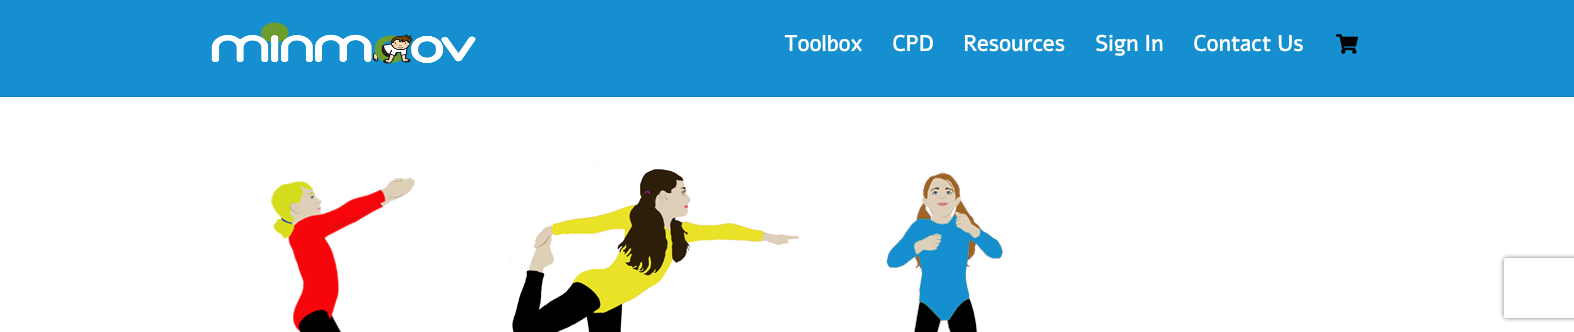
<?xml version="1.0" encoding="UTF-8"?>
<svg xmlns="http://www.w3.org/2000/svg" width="1574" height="332">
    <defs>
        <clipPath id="clip1"><path d="M 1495 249 H 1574 V 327 H 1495 Z M 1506 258 H 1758 C 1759 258 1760 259 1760 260 V 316 C 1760 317 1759 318 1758 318 H 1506 C 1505 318 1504 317 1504 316 V 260 C 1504 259 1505 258 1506 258 Z" clip-rule="evenodd"/></clipPath>
        <filter id="blur1" x="-50%" y="-200%" width="200%" height="500%"><feGaussianBlur stdDeviation="2.5"/></filter>
    </defs>
    <rect width="100%" height="100%" fill="#FFFFFF"/>
    <rect x="0" y="0" width="1574" height="96" fill="#158FCF"/>
    <rect x="0" y="96" width="1574" height="1" fill="#1488C5"/>
    <image x="211" y="22" width="265" height="42" href="img_01.png"/>
    <text x="784" y="51" font-family="Alef" font-size="22" font-weight="700" fill="#FFFFFF">Toolbox</text>
    <text x="892" y="51" font-family="Alef" font-size="22" font-weight="700" fill="#FFFFFF">CPD</text>
    <text x="963" y="51" font-family="Alef" font-size="22" font-weight="700" fill="#FFFFFF">Resources</text>
    <text x="1095" y="51" font-family="Alef" font-size="22" font-weight="700" fill="#FFFFFF">Sign In</text>
    <text x="1193" y="51" font-family="Alef" font-size="22" font-weight="700" fill="#FFFFFF">Contact Us</text>
    <image x="1336" y="34" width="22" height="20" href="img_02.png"/>
    <image x="271" y="164" width="735" height="168" href="img_03.png"/>
    <g clip-path="url(#clip1)">
        <rect x="1504" y="258" width="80" height="60" rx="2" fill="#808080" filter="url(#blur1)"/>
    </g>
</svg>
